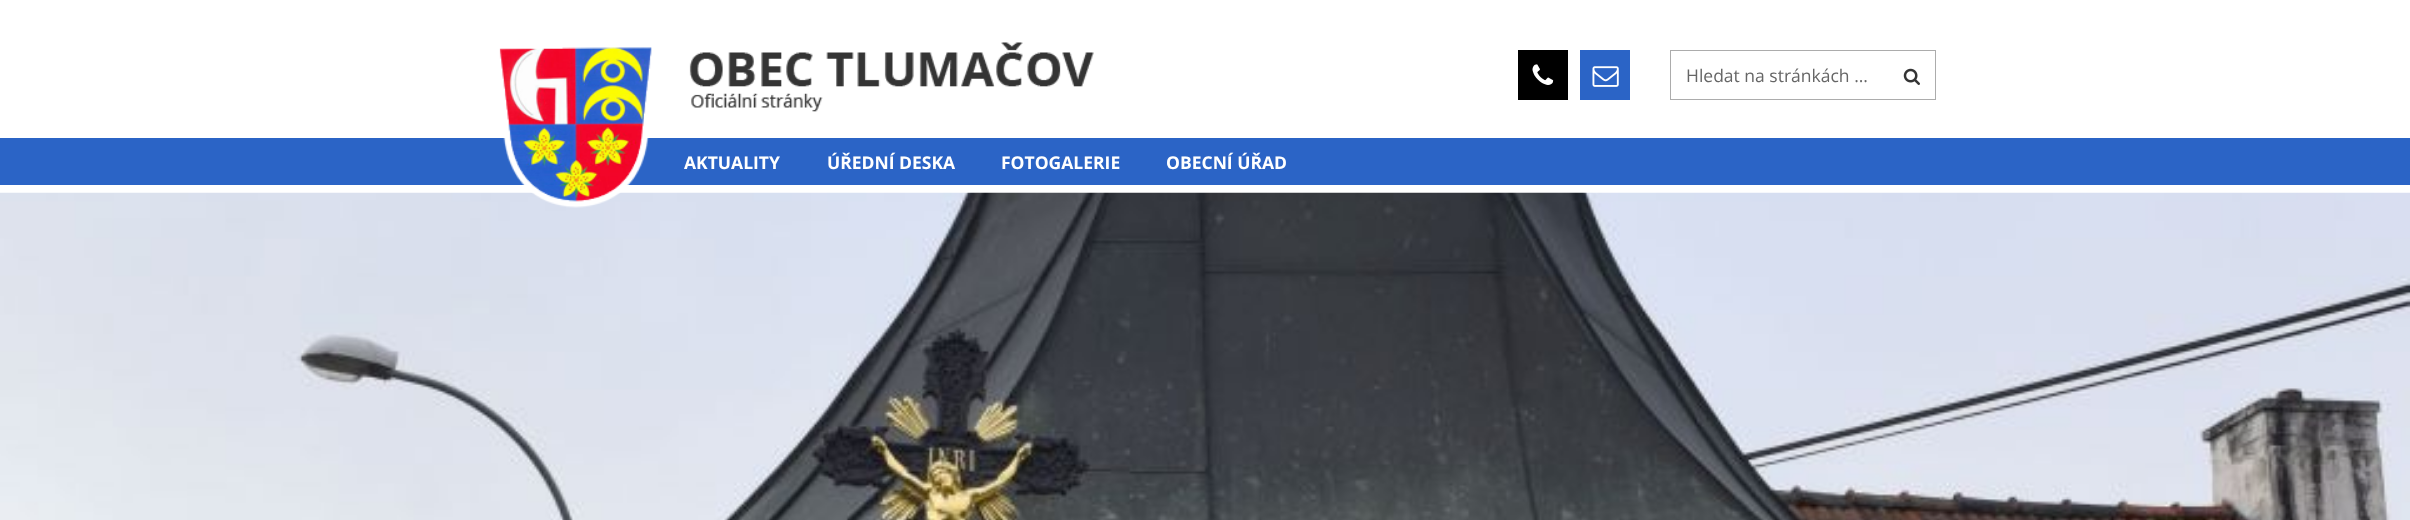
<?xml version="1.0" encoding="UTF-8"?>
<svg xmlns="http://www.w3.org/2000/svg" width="2410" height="520">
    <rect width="100%" height="100%" fill="#FFFFFF"/>
    <rect x="0" y="138" width="2410" height="47" fill="#2B64C6"/>
    <image x="0" y="192" width="2410" height="328" href="img_06.png"/>
    <image x="499" y="47" width="153" height="161" href="img_01.png"/>
    <image x="689" y="42" width="405" height="70" href="img_02.png"/>
    <rect x="1518" y="50" width="50" height="50" fill="#000000"/>
    <image x="1532" y="64" width="22" height="21" href="img_03.png"/>
    <rect x="1580" y="50" width="50" height="50" fill="#2B64C6"/>
    <image x="1592" y="66" width="27" height="21" href="img_04.png"/>
    <rect x="1670.5" y="50.5" width="265" height="49" fill="none" stroke="#ACACAC"/>
    <text x="1686" y="82" font-family="Open Sans" font-size="17.5" fill="#666666">Hledat na stránkách ...</text>
    <image x="1903" y="68" width="17" height="17" href="img_05.png"/>
    <text x="684" y="169" font-family="Open Sans" font-size="17.5" font-weight="700" fill="#FFFFFF">AKTUALITY</text>
    <text x="827" y="169" font-family="Open Sans" font-size="17.5" font-weight="700" fill="#FFFFFF">ÚŘEDNÍ DESKA</text>
    <text x="1001" y="169" font-family="Open Sans" font-size="17.5" font-weight="700" fill="#FFFFFF">FOTOGALERIE</text>
    <text x="1166" y="169" font-family="Open Sans" font-size="17.5" font-weight="700" fill="#FFFFFF">OBECNÍ ÚŘAD</text>
</svg>
